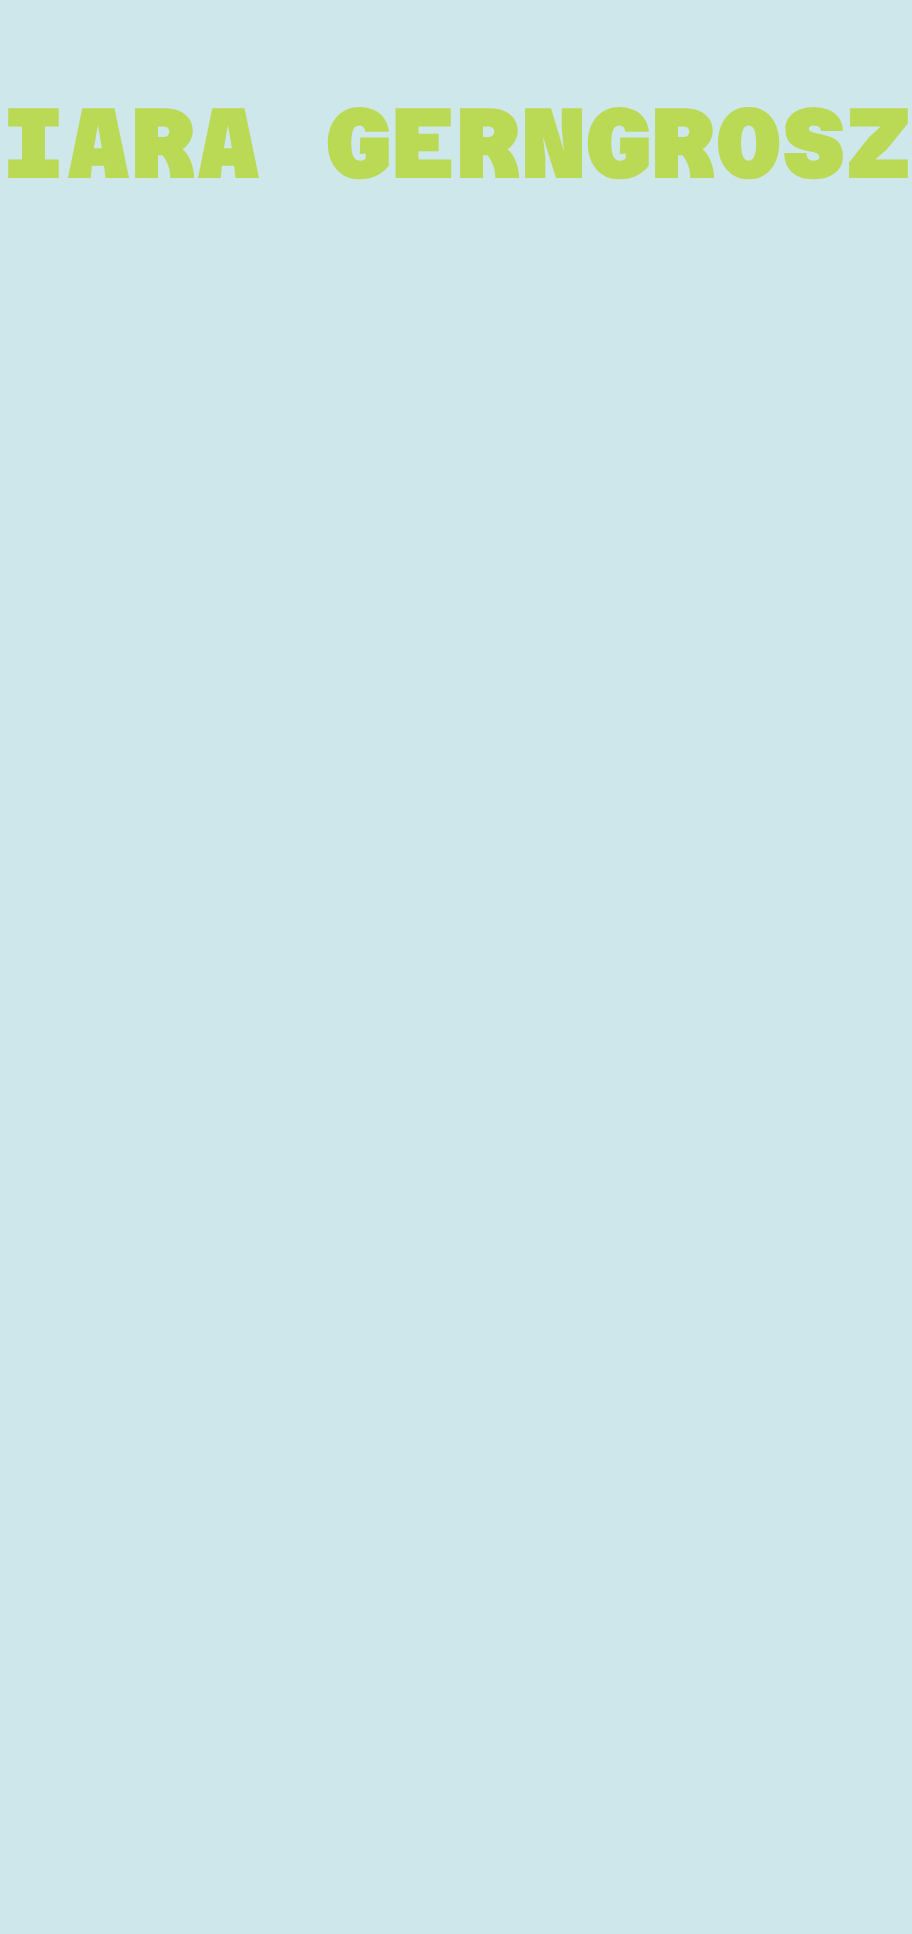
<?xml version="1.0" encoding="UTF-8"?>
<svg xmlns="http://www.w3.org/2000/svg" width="912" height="1934">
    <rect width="100%" height="100%" fill="#CEE7EB"/>
    <text x="1" y="178" font-family="Azeret Mono" font-size="100" font-weight="900" fill="#BADA55">IARA GERNGROSZ</text>
</svg>
